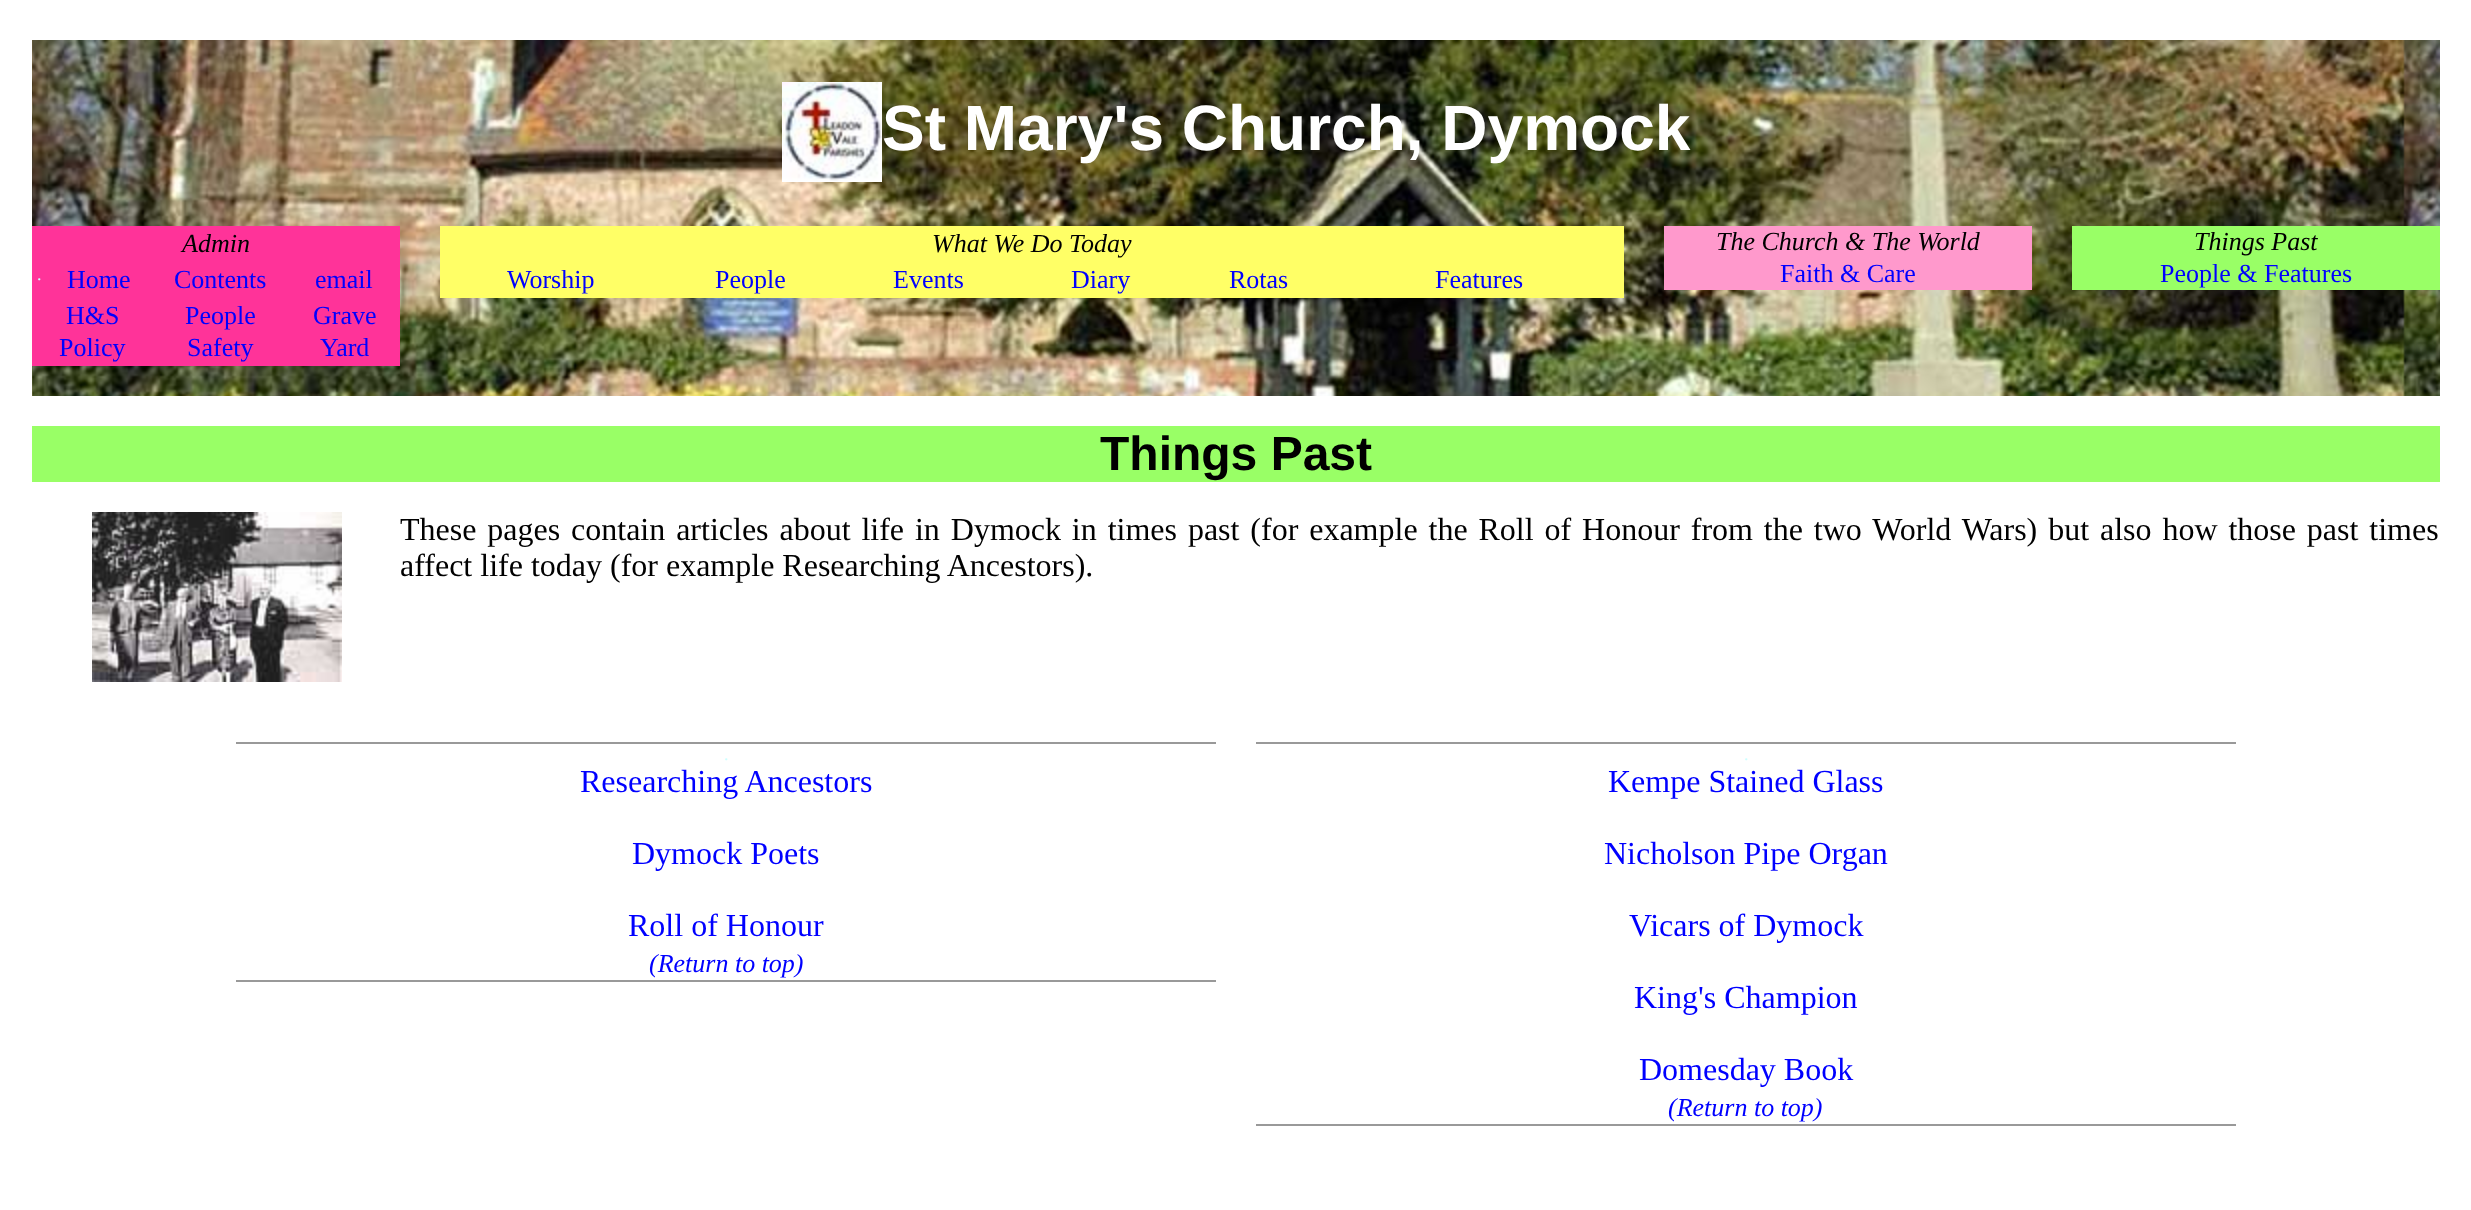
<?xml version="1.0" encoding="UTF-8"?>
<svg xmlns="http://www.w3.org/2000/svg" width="2471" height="1210">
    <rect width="100%" height="100%" fill="#FFFFFF"/>
    <image x="32" y="40" width="2408" height="356" href="img_01.png"/>
    <image x="782" y="82" width="100" height="100" href="img_02.png"/>
    <text x="882" y="150" font-family="Liberation Sans" font-size="64" font-weight="700" fill="#FFFFFF">St Mary's Church, Dymock</text>
    <rect x="32" y="226" width="368" height="140" fill="#FF3399"/>
    <text x="182" y="252" font-family="Liberation Serif" font-size="26" font-style="italic" fill="#000000">Admin</text>
    <text x="37" y="280" font-family="Liberation Serif" font-size="18" fill="#CCFFFF">.</text>
    <text x="67" y="288" font-family="Liberation Serif" font-size="26" fill="#0000FF">Home</text>
    <text x="174" y="288" font-family="Liberation Serif" font-size="26" fill="#0000FF">Contents</text>
    <text x="315" y="288" font-family="Liberation Serif" font-size="26" fill="#0000FF">email</text>
    <text x="66" y="324" font-family="Liberation Serif" font-size="26" fill="#0000FF">H&amp;S</text>
    <text x="59" y="356" font-family="Liberation Serif" font-size="26" fill="#0000FF">Policy</text>
    <text x="185" y="324" font-family="Liberation Serif" font-size="26" fill="#0000FF">People</text>
    <text x="187" y="356" font-family="Liberation Serif" font-size="26" fill="#0000FF">Safety</text>
    <text x="313" y="324" font-family="Liberation Serif" font-size="26" fill="#0000FF">Grave</text>
    <text x="320" y="356" font-family="Liberation Serif" font-size="26" fill="#0000FF">Yard</text>
    <rect x="440" y="226" width="1184" height="72" fill="#FFFF66"/>
    <text x="932" y="252" font-family="Liberation Serif" font-size="26" font-style="italic" fill="#000000">What We Do Today</text>
    <text x="507" y="288" font-family="Liberation Serif" font-size="26" fill="#0000FF">Worship</text>
    <text x="715" y="288" font-family="Liberation Serif" font-size="26" fill="#0000FF">People</text>
    <text x="893" y="288" font-family="Liberation Serif" font-size="26" fill="#0000FF">Events</text>
    <text x="1071" y="288" font-family="Liberation Serif" font-size="26" fill="#0000FF">Diary</text>
    <text x="1229" y="288" font-family="Liberation Serif" font-size="26" fill="#0000FF">Rotas</text>
    <text x="1435" y="288" font-family="Liberation Serif" font-size="26" fill="#0000FF">Features</text>
    <rect x="1664" y="226" width="368" height="64" fill="#FF99CC"/>
    <text x="1716" y="250" font-family="Liberation Serif" font-size="26" font-style="italic" fill="#000000">The Church &amp; The World</text>
    <text x="1780" y="282" font-family="Liberation Serif" font-size="26" fill="#0000FF">Faith &amp; Care</text>
    <rect x="2072" y="226" width="368" height="64" fill="#99FF66"/>
    <text x="2194" y="250" font-family="Liberation Serif" font-size="26" font-style="italic" fill="#000000">Things Past</text>
    <text x="2160" y="282" font-family="Liberation Serif" font-size="26" fill="#0000FF">People &amp; Features</text>
    <rect x="32" y="426" width="2408" height="56" fill="#99FF66"/>
    <text x="1100" y="470" font-family="Liberation Sans" font-size="48" font-weight="700" fill="#000000">Things Past</text>
    <image x="92" y="512" width="250" height="170" href="img_03.png"/>
    <text font-family="Liberation Serif" font-size="32" fill="#000000">
        <tspan x="400" y="540" word-spacing="2.9">These pages contain articles about life in Dymock in times past (for example the Roll of Honour from the two World Wars) but also how those past times</tspan>
        <tspan x="400" y="576">affect life today (for example Researching Ancestors).</tspan>
    </text>
    <rect x="236" y="742" width="980" height="2" fill="#999999"/>
    <rect x="236" y="980" width="980" height="2" fill="#999999"/>
    <text x="724" y="760" font-family="Liberation Serif" font-size="18" fill="#CCFFFF">.</text>
    <text x="580" y="792" font-family="Liberation Serif" font-size="32" fill="#0000FF">Researching Ancestors</text>
    <text x="632" y="864" font-family="Liberation Serif" font-size="32" fill="#0000FF">Dymock Poets</text>
    <text x="628" y="936" font-family="Liberation Serif" font-size="32" fill="#0000FF">Roll of Honour</text>
    <text x="649" y="972" font-family="Liberation Serif" font-size="26" font-style="italic" fill="#0000FF">(Return to top)</text>
    <rect x="1256" y="742" width="980" height="2" fill="#999999"/>
    <rect x="1256" y="1124" width="980" height="2" fill="#999999"/>
    <text x="1744" y="760" font-family="Liberation Serif" font-size="18" fill="#CCFFFF">.</text>
    <text x="1608" y="792" font-family="Liberation Serif" font-size="32" fill="#0000FF">Kempe Stained Glass</text>
    <text x="1604" y="864" font-family="Liberation Serif" font-size="32" fill="#0000FF">Nicholson Pipe Organ</text>
    <text x="1629" y="936" font-family="Liberation Serif" font-size="32" fill="#0000FF">Vicars of Dymock</text>
    <text x="1634" y="1008" font-family="Liberation Serif" font-size="32" fill="#0000FF">King's Champion</text>
    <text x="1639" y="1080" font-family="Liberation Serif" font-size="32" fill="#0000FF">Domesday Book</text>
    <text x="1668" y="1116" font-family="Liberation Serif" font-size="26" font-style="italic" fill="#0000FF">(Return to top)</text>
</svg>
